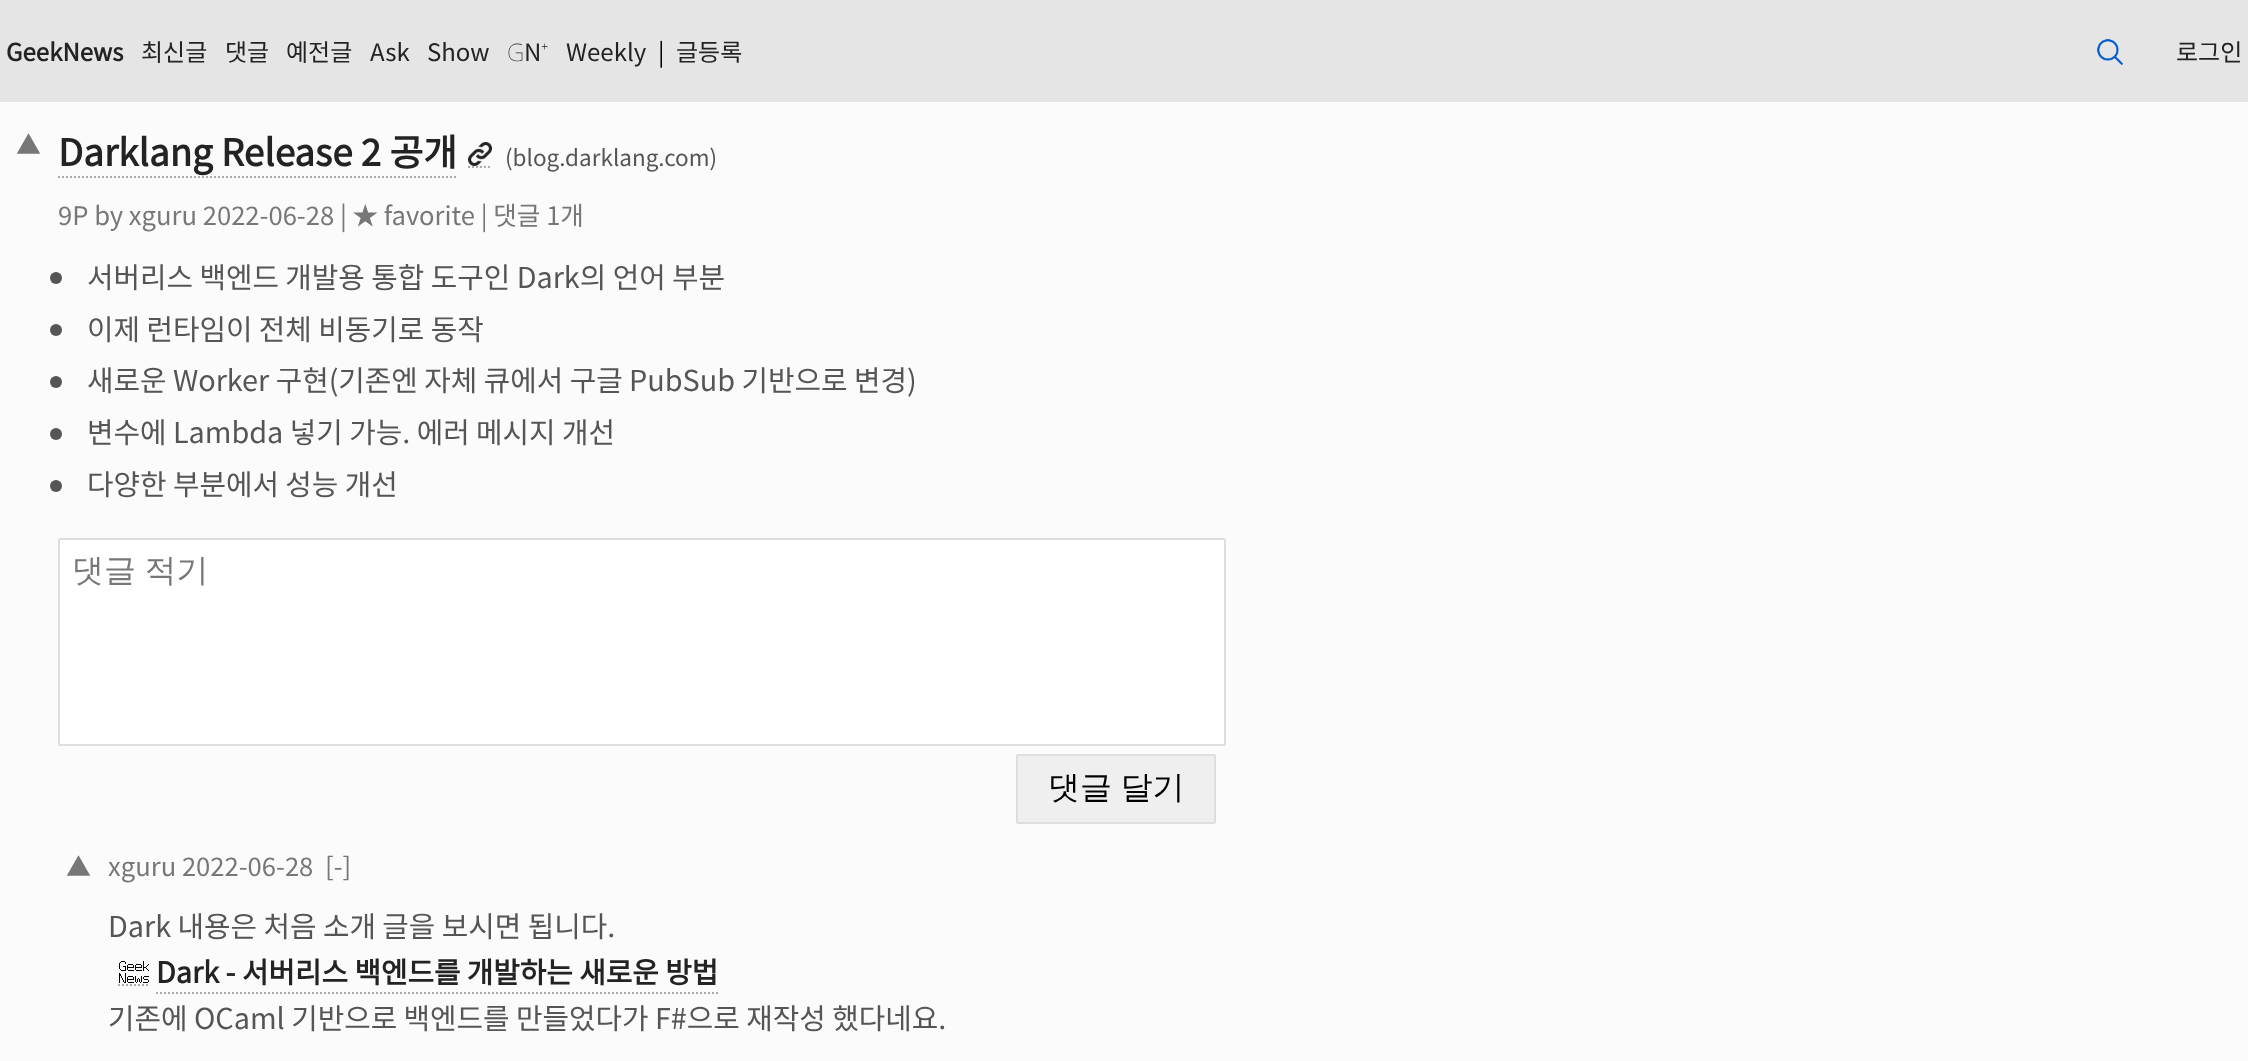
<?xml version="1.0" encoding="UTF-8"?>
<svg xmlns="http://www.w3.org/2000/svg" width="2248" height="1061">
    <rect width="100%" height="100%" fill="#FBFBFB"/>
    <rect x="0" y="0" width="2248" height="102" fill="#E5E5E5"/>
    <text x="6" y="61" font-family="Noto Sans KR" font-size="24" font-weight="700" fill="#232323">GeekNews</text>
    <text x="141" y="61" font-family="Noto Sans KR" font-size="24" font-weight="100" fill="#232323">최신글</text>
    <text x="225" y="61" font-family="Noto Sans KR" font-size="24" font-weight="100" fill="#232323">댓글</text>
    <text x="286" y="61" font-family="Noto Sans KR" font-size="24" font-weight="100" fill="#232323">예전글</text>
    <text x="370" y="61" font-family="Noto Sans KR" font-size="24" font-weight="100" fill="#232323">Ask</text>
    <text x="427" y="61" font-family="Noto Sans KR" font-size="24" font-weight="100" fill="#232323">Show</text>
    <text x="507" y="61" font-family="Noto Sans" font-size="24" font-weight="100" fill="#232323">G</text>
    <text x="524" y="61" font-family="Noto Sans KR" font-size="24" font-weight="100" fill="#232323">N</text>
    <text x="541" y="61" font-family="Noto Sans" font-size="24" font-weight="100" fill="#232323">⁺</text>
    <text x="566" y="61" font-family="Noto Sans KR" font-size="24" font-weight="100" fill="#232323">Weekly</text>
    <text x="658" y="61" font-family="Noto Sans KR" font-size="24" font-weight="100" fill="#000000">|</text>
    <text x="676" y="61" font-family="Noto Sans KR" font-size="24" font-weight="100" fill="#232323">글등록</text>
    <image x="2097" y="39" width="26" height="26" href="img_01.png"/>
    <text x="2176" y="61" font-family="Noto Sans KR" font-size="24" font-weight="100" fill="#232323">로그인</text>
    <text x="16" y="154" font-family="Noto Sans KR" font-size="25" font-weight="100" fill="#777777">▲</text>
    <path d="M 58 177 H 458" fill="none" stroke="#AAAAAA" stroke-width="2" stroke-dasharray="2 2"/>
    <path d="M 468 167 H 492" fill="none" stroke="#AAAAAA" stroke-width="2" stroke-dasharray="2 2"/>
    <text x="58" y="166" font-family="Noto Sans KR" font-size="36.75" font-weight="700" fill="#232323">Darklang Release 2 공개</text>
    <image x="468" y="142" width="24" height="24" href="img_02.png"/>
    <text x="505" y="166" font-family="Noto Sans KR" font-size="22.5" font-weight="100" fill="#555555">(blog.darklang.com)</text>
    <text x="58" y="225" font-family="Noto Sans KR" font-size="25.6" font-weight="100" fill="#777777">9P by xguru 2022-06-28 | ★ favorite | 댓글 1개</text>
    <circle cx="56" cy="278" r="6" fill="#555555"/>
    <text x="87" y="288" font-family="Noto Sans KR" font-size="28.8" font-weight="100" fill="#555555">서버리스 백엔드 개발용 통합 도구인 Dark의 언어 부분</text>
    <circle cx="56" cy="330" r="6" fill="#555555"/>
    <text x="87" y="340" font-family="Noto Sans KR" font-size="28.8" font-weight="100" fill="#555555">이제 런타임이 전체 비동기로 동작</text>
    <circle cx="56" cy="382" r="6" fill="#555555"/>
    <text x="87" y="391" font-family="Noto Sans KR" font-size="28.8" font-weight="100" fill="#555555">새로운 Worker 구현(기존엔 자체 큐에서 구글 PubSub 기반으로 변경)</text>
    <circle cx="56" cy="434" r="6" fill="#555555"/>
    <text x="87" y="443" font-family="Noto Sans KR" font-size="28.8" font-weight="100" fill="#555555">변수에 Lambda 넣기 가능. 에러 메시지 개선</text>
    <circle cx="56" cy="486" r="6" fill="#555555"/>
    <text x="87" y="495" font-family="Noto Sans KR" font-size="28.8" font-weight="100" fill="#555555">다양한 부분에서 성능 개선</text>
    <rect x="59" y="539" width="1166" height="206" rx="1" fill="#FFFFFF" stroke="#DEDEDE" stroke-width="2"/>
    <text x="72" y="581" word-spacing="-1" font-family="WenQuanYi Zen Hei" font-size="32" font-weight="500" fill="#777777">댓글 적기</text>
    <rect x="1017" y="755" width="198" height="68" rx="1" fill="#EFEFEF" stroke="#DEDEDE" stroke-width="2"/>
    <text x="1048" y="798" word-spacing="-1" font-family="WenQuanYi Zen Hei" font-size="32" font-weight="500" fill="#000000">댓글 달기</text>
    <text x="66" y="876" font-family="Noto Sans KR" font-size="25" font-weight="100" fill="#777777">▲</text>
    <text x="108" y="876" font-family="Noto Sans KR" font-size="25.6" font-weight="100" fill="#777777">xguru 2022-06-28</text>
    <text x="325" y="876" font-family="Noto Sans KR" font-size="25.6" font-weight="100" fill="#777777">[-]</text>
    <text x="108" y="937" font-family="Noto Sans KR" font-size="28.8" font-weight="100" fill="#555555">Dark 내용은 처음 소개 글을 보시면 됩니다.</text>
    <path d="M 118 985 H 150" fill="none" stroke="#AAAAAA" stroke-width="2" stroke-dasharray="2 2"/>
    <path d="M 156 993 H 718" fill="none" stroke="#AAAAAA" stroke-width="2" stroke-dasharray="2 2"/>
    <image x="119" y="961" width="30" height="22" href="img_03.png"/>
    <text x="156" y="983" font-family="Noto Sans KR" font-size="28.8" font-weight="700" fill="#232323">Dark - 서버리스 백엔드를 개발하는 새로운 방법</text>
    <text x="108" y="1029" font-family="Noto Sans KR" font-size="28.8" font-weight="100" fill="#555555">기존에 OCaml 기반으로 백엔드를 만들었다가 F#으로 재작성 했다네요.</text>
</svg>
